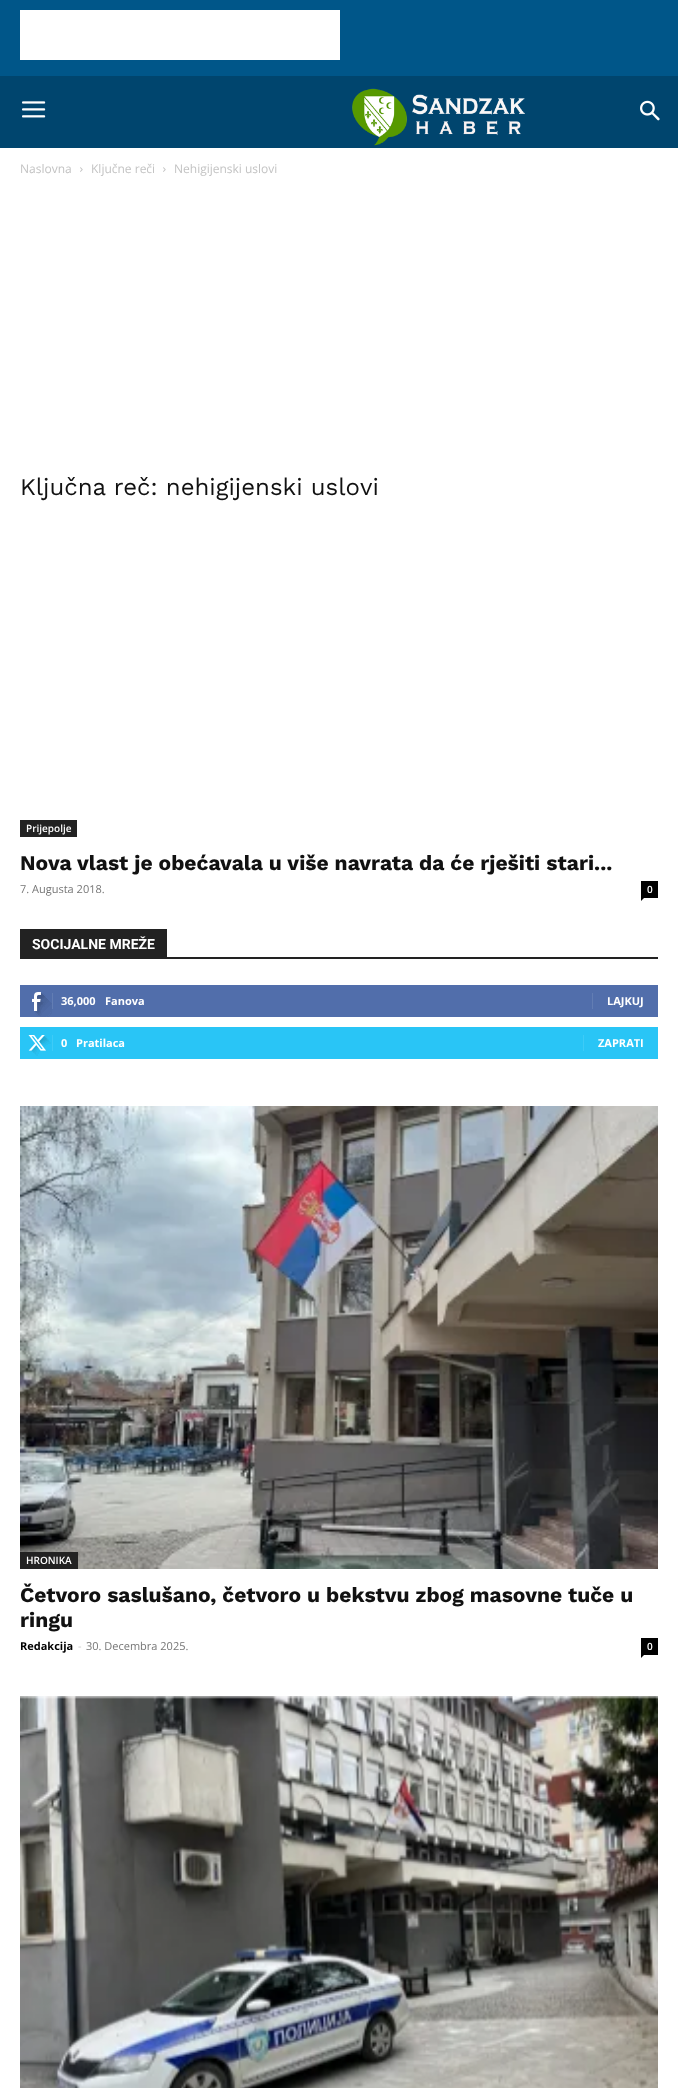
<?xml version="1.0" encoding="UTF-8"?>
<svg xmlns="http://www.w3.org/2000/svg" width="678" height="2088">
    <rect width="100%" height="100%" fill="#FFFFFF"/>
    <rect x="0" y="0" width="678" height="76" fill="#005689"/>
    <rect x="20" y="10" width="320" height="50" fill="#FFFFFF"/>
    <rect x="0" y="76" width="678" height="72" fill="#00456E"/>
    <image x="22" y="101" width="24" height="17" href="img_01.png"/>
    <image x="352" y="88" width="173" height="58" href="img_02.png"/>
    <image x="640" y="100" width="20" height="21" href="img_03.png"/>
    <text x="20" y="173" font-family="Open Sans" font-size="12" fill="#C3C3C3">Naslovna</text>
    <image x="80" y="167" width="3" height="5" href="img_04.png"/>
    <text x="91" y="173" font-family="Open Sans" font-size="12" fill="#C3C3C3">Ključne reči</text>
    <image x="163" y="167" width="3" height="5" href="img_04.png"/>
    <text x="174" y="173" font-family="Open Sans" font-size="12" fill="#C3C3C3">Nehigijenski uslovi</text>
    <text x="20" y="495" font-family="Work Sans" font-size="24" fill="#111111">Ključna reč: nehigijenski uslovi</text>
    <rect x="20" y="820" width="57" height="17" fill="#222222"/>
    <text x="26" y="832" font-family="Open Sans" font-size="10" font-weight="600" fill="#FFFFFF">Prijepolje</text>
    <text x="20" y="870" font-family="Work Sans" font-size="21" font-weight="700" fill="#111111">Nova vlast je obećavala u više navrata da će rješiti stari...</text>
    <text x="20" y="893" font-family="Open Sans" font-size="11" fill="#767676">7. Augusta 2018.</text>
    <rect x="641" y="881" width="17" height="17" fill="#000000"/>
    <text x="647" y="893" font-family="Open Sans" font-size="10" font-weight="600" fill="#FFFFFF">0</text>
    <path d="M 641 898 H 644 L 641 901 Z" fill="#000000"/>
    <rect x="20" y="957" width="638" height="2" fill="#222222"/>
    <rect x="20" y="929" width="147" height="28" fill="#222222"/>
    <text x="32" y="949" font-family="Roboto" font-size="14" font-weight="700" fill="#FFFFFF">SOCIJALNE MREŽE</text>
    <rect x="20" y="985" width="638" height="32" fill="#516EAB"/>
    <image x="32" y="992" width="20" height="25" href="img_05.png"/>
    <rect x="52" y="993" width="1" height="16" fill="#627DB3"/>
    <text x="61" y="1005" font-family="Open Sans" font-size="11" font-weight="700" fill="#FFFFFF">36,000</text>
    <text x="105" y="1005" font-family="Open Sans" font-size="11" font-weight="700" fill="#FFFFFF">Fanova</text>
    <rect x="592" y="993" width="1" height="16" fill="#627DB3"/>
    <text x="607" y="1005" font-family="Open Sans" font-size="11" font-weight="700" fill="#FFFFFF">LAJKUJ</text>
    <rect x="20" y="1027" width="638" height="32" fill="#29C5F6"/>
    <image x="28" y="1035" width="23" height="21" href="img_06.png"/>
    <rect x="52" y="1035" width="1" height="16" fill="#3ECBF7"/>
    <text x="61" y="1047" font-family="Open Sans" font-size="11" font-weight="700" fill="#FFFFFF">0</text>
    <text x="76" y="1047" font-family="Open Sans" font-size="11" font-weight="700" fill="#FFFFFF">Pratilaca</text>
    <rect x="583" y="1035" width="1" height="16" fill="#3ECBF7"/>
    <text x="598" y="1047" font-family="Open Sans" font-size="11" font-weight="700" fill="#FFFFFF">ZAPRATI</text>
    <image x="20" y="1106" width="638" height="463" href="img_07.png"/>
    <rect x="20" y="1552" width="58" height="17" fill="#222222"/>
    <text x="26" y="1564" font-family="Open Sans" font-size="10" font-weight="600" fill="#FFFFFF">HRONIKA</text>
    <text font-family="Work Sans" font-size="21" font-weight="700" fill="#111111">
        <tspan x="20" y="1602">Četvoro saslušano, četvoro u bekstvu zbog masovne tuče u</tspan>
        <tspan x="20" y="1627">ringu</tspan>
    </text>
    <text x="20" y="1650" font-family="Open Sans" font-size="11" font-weight="700" fill="#000000">Redakcija</text>
    <text x="78" y="1650" font-family="Open Sans" font-size="11" fill="#CCCCCC">-</text>
    <text x="86" y="1650" font-family="Open Sans" font-size="11" fill="#767676">30. Decembra 2025.</text>
    <rect x="641" y="1638" width="17" height="17" fill="#000000"/>
    <text x="647" y="1650" font-family="Open Sans" font-size="10" font-weight="600" fill="#FFFFFF">0</text>
    <path d="M 641 1655 H 644 L 641 1658 Z" fill="#000000"/>
    <image x="20" y="1696" width="638" height="392" href="img_08.png"/>
</svg>
